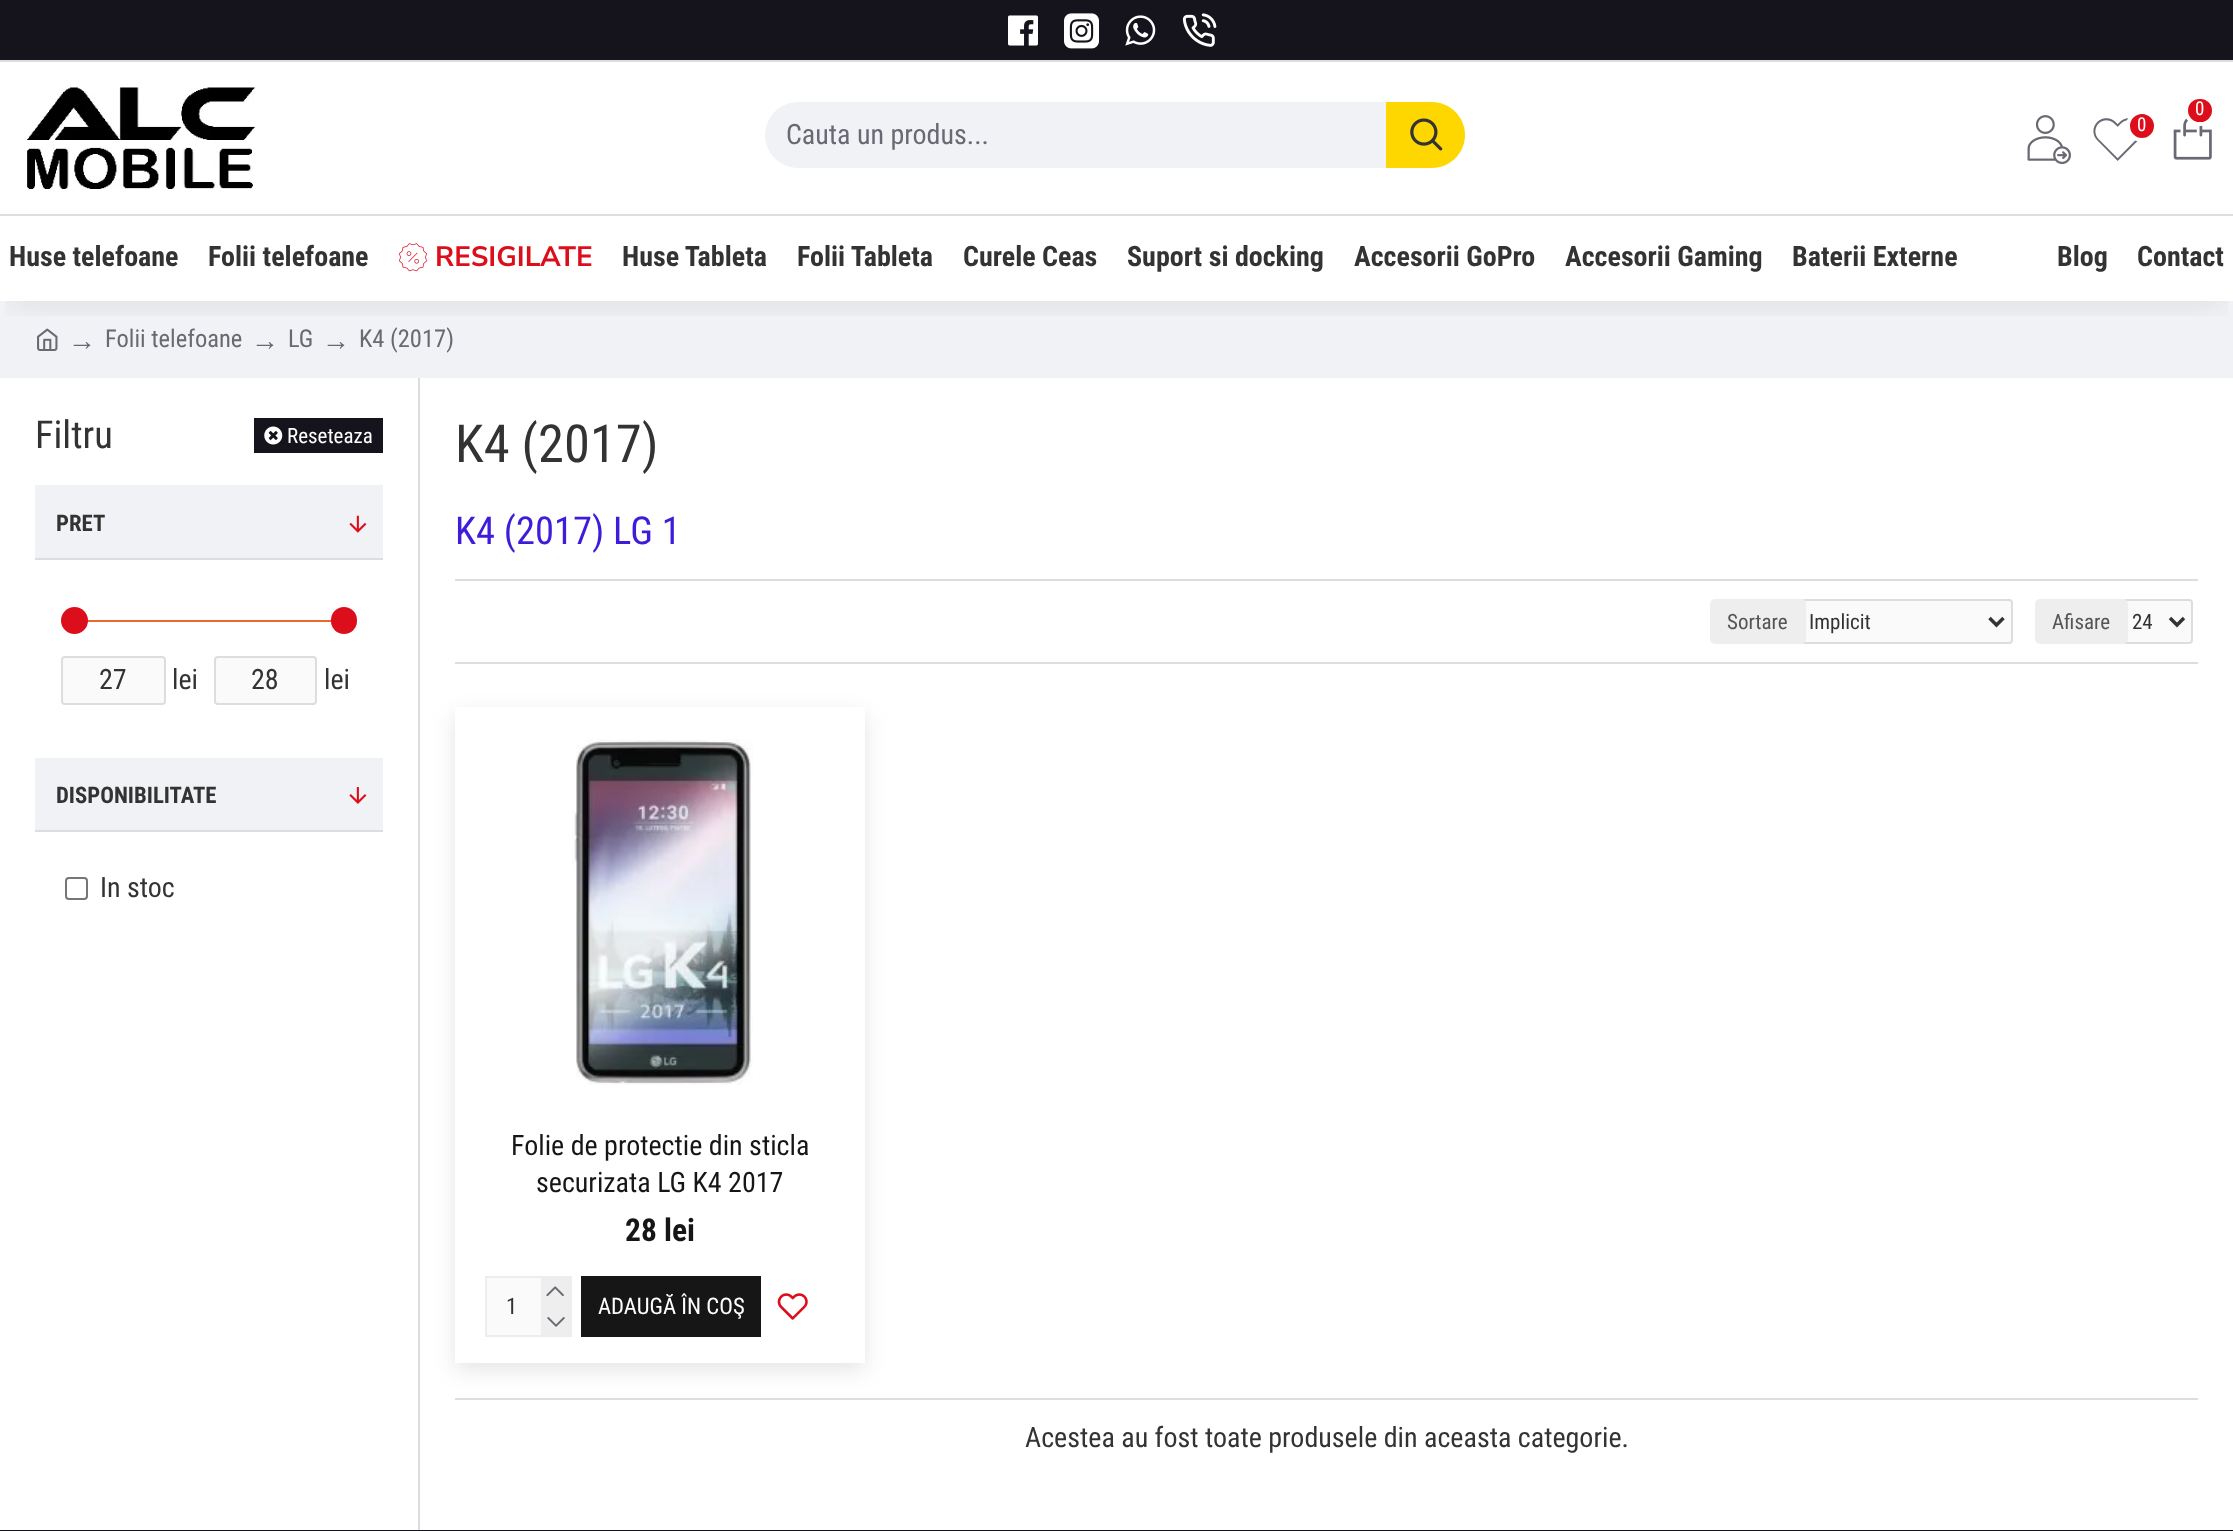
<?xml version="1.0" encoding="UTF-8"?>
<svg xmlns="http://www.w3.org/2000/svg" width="2233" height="1531">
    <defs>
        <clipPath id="clip1"><rect x="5" y="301" width="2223" height="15"/></clipPath>
        <filter id="blur1" x="-50%" y="-200%" width="200%" height="500%"><feGaussianBlur stdDeviation="17.5"/></filter>
        <clipPath id="clip2"><path d="M 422 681 H 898 V 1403 H 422 Z M 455 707 H 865 V 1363 H 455 Z" clip-rule="evenodd"/></clipPath>
        <filter id="blur2" x="-50%" y="-200%" width="200%" height="500%"><feGaussianBlur stdDeviation="10.5"/></filter>
    </defs>
    <rect width="100%" height="100%" fill="#FFFFFF"/>
    <rect x="0" y="301" width="2233" height="77" fill="#F0F2F5"/>
    <image x="37" y="328" width="21" height="23" href="img_11.png"/>
    <g clip-path="url(#clip1)">
        <rect x="9" y="18" width="2215" height="283" fill="#000000" fill-opacity="0.1" filter="url(#blur1)"/>
    </g>
    <rect x="0" y="0" width="2233" height="60" fill="#15131C"/>
    <rect x="0" y="60" width="2233" height="2" fill="#DDDDDD"/>
    <image x="1008" y="15" width="30" height="31" href="img_01.png"/>
    <image x="1064" y="13" width="35" height="36" href="img_02.png"/>
    <image x="1125" y="15" width="31" height="31" href="img_03.png"/>
    <image x="1182" y="13" width="35" height="34" href="img_04.png"/>
    <image x="25" y="87" width="230" height="102" href="img_05.png"/>
    <image x="2173" y="118" width="39" height="42" href="img_06.png"/>
    <rect x="2186" y="97" width="28" height="27" rx="13.5" fill="#DD0E1C" stroke="#FFFFFF" stroke-width="4"/>
    <text x="2195" y="115" font-family="Roboto Condensed" font-size="19" fill="#FFFFFF">0</text>
    <image x="2027" y="115" width="44" height="50" href="img_07.png"/>
    <image x="2093" y="118" width="45" height="43" href="img_08.png"/>
    <circle cx="2142" cy="126" r="14" fill="#DD0E1C" stroke="#FFFFFF" stroke-width="4"/>
    <text x="2137" y="131" font-family="Roboto Condensed" font-size="19" fill="#FFFFFF">0</text>
    <path d="M 798 102 H 1386 V 168 H 798 C 780 168 765 153 765 135 C 765 117 780 102 798 102 Z" fill="#F0F2F5"/>
    <text x="786" y="144" font-family="Roboto Condensed" font-size="28" fill="#696973">Cauta un produs...</text>
    <path d="M 1386 102 H 1432 C 1450 102 1465 117 1465 135 C 1465 153 1450 168 1432 168 H 1386 Z" fill="#FED600"/>
    <image x="1410" y="118" width="33" height="33" href="img_09.png"/>
    <rect x="0" y="214" width="2233" height="2" fill="#DDDDDD"/>
    <text x="9" y="266" font-family="Roboto Condensed" font-size="28" font-weight="700" fill="#333333">Huse telefoane</text>
    <text x="208" y="266" font-family="Roboto Condensed" font-size="28" font-weight="700" fill="#333333">Folii telefoane</text>
    <image x="399" y="243" width="28" height="29" href="img_10.png"/>
    <text x="435" y="266" font-family="Nunito Sans" font-size="28" font-weight="700" fill="#DD0E1C">RESIGILATE</text>
    <text x="622" y="266" font-family="Roboto Condensed" font-size="28" font-weight="700" fill="#333333">Huse Tableta</text>
    <text x="797" y="266" font-family="Roboto Condensed" font-size="28" font-weight="700" fill="#333333">Folii Tableta</text>
    <text x="963" y="266" font-family="Roboto Condensed" font-size="28" font-weight="700" fill="#333333">Curele Ceas</text>
    <text x="1127" y="266" font-family="Roboto Condensed" font-size="28" font-weight="700" fill="#333333">Suport si docking</text>
    <text x="1354" y="266" font-family="Roboto Condensed" font-size="28" font-weight="700" fill="#333333">Accesorii GoPro</text>
    <text x="1565" y="266" font-family="Roboto Condensed" font-size="28" font-weight="700" fill="#333333">Accesorii Gaming</text>
    <text x="1792" y="266" font-family="Roboto Condensed" font-size="28" font-weight="700" fill="#333333">Baterii Externe</text>
    <text x="2057" y="266" font-family="Roboto Condensed" font-size="28" font-weight="700" fill="#333333">Blog</text>
    <text x="2137" y="266" font-family="Roboto Condensed" font-size="28" font-weight="700" fill="#333333">Contact</text>
    <text x="68" y="350" font-family="Liberation Serif" font-size="28" fill="#696973">→</text>
    <text x="105" y="347" font-family="Roboto Condensed" font-size="24.5" fill="#696973">Folii telefoane</text>
    <text x="251" y="350" font-family="Liberation Serif" font-size="28" fill="#696973">→</text>
    <text x="288" y="347" font-family="Roboto Condensed" font-size="24.5" fill="#696973">LG</text>
    <text x="322" y="350" font-family="Liberation Serif" font-size="28" fill="#696973">→</text>
    <text x="359" y="347" font-family="Roboto Condensed" font-size="24.5" fill="#696973">K4 (2017)</text>
    <rect x="418" y="378" width="2" height="1152" fill="#DDDDDD"/>
    <text x="35" y="448" font-family="Roboto Condensed" font-size="38.5" fill="#333333">Filtru</text>
    <rect x="254" y="418" width="129" height="35" fill="#15131C"/>
    <image x="264" y="426" width="19" height="19" href="img_12.png"/>
    <text x="287" y="443" font-family="Roboto Condensed" font-size="21" fill="#FFFFFF">Reseteaza</text>
    <rect x="35" y="485" width="348" height="73" fill="#F0F2F5"/>
    <text x="56" y="531" font-family="Roboto Condensed" font-size="22.75" font-weight="700" fill="#333333">PRET</text>
    <image x="349" y="515" width="18" height="18" href="img_13.png"/>
    <rect x="35" y="558" width="348" height="2" fill="#DDDDDD"/>
    <path d="M 84 620 H 336 C 338 620 352 621 341 622 H 84 L 75 621 L 78 620 Z" fill="#E96631"/>
    <circle cx="74.5" cy="620.5" r="13.5" fill="#DD0E1C"/>
    <rect x="331" y="607" width="26" height="27" rx="13" fill="#DD0E1C"/>
    <rect x="62" y="657" width="103" height="47" rx="3" fill="#FAFAFA" stroke="#DDDDDD" stroke-width="2"/>
    <text x="99" y="689" font-family="Roboto Condensed" font-size="28" fill="#333333">27</text>
    <text x="172" y="689" font-family="Roboto Condensed" font-size="28" fill="#333333">lei</text>
    <rect x="215" y="657" width="101" height="47" rx="3" fill="#FAFAFA" stroke="#DDDDDD" stroke-width="2"/>
    <text x="251" y="689" font-family="Roboto Condensed" font-size="28" fill="#333333">28</text>
    <text x="324" y="689" font-family="Roboto Condensed" font-size="28" fill="#333333">lei</text>
    <rect x="35" y="758" width="348" height="72" fill="#F0F2F5"/>
    <text x="56" y="803" font-family="Roboto Condensed" font-size="22.75" font-weight="700" fill="#333333">DISPONIBILITATE</text>
    <image x="349" y="787" width="18" height="17" href="img_14.png"/>
    <rect x="35" y="830" width="348" height="2" fill="#DDDDDD"/>
    <rect x="66" y="878" width="21" height="21" rx="3" fill="none" stroke="#767676" stroke-width="2"/>
    <text x="100" y="897" font-family="Roboto Condensed" font-size="28" fill="#333333">In stoc</text>
    <text x="455" y="462" font-family="Roboto Condensed" font-size="52.5" fill="#333333">K4 (2017)</text>
    <text x="455" y="544" font-family="Roboto Condensed" font-size="38.5" fill="#3F1CDB">K4 (2017) LG 1</text>
    <rect x="455" y="579" width="1743" height="2" fill="#DDDDDD"/>
    <rect x="455" y="662" width="1743" height="2" fill="#DDDDDD"/>
    <rect x="1802" y="600" width="210" height="43" rx="3" fill="#FAFAFA" stroke="#DDDDDD" stroke-width="2"/>
    <rect x="1710" y="599" width="96" height="45" rx="5" fill="#EEEEEE"/>
    <text x="1727" y="629" font-family="Roboto Condensed" font-size="21" fill="#555555">Sortare</text>
    <path d="M 1989.5 618 L 1996.5 625 L 2003.5 618" fill="none" stroke="#333333" stroke-width="3.5"/>
    <text x="1809" y="629" font-family="Roboto Condensed" font-size="21" fill="#333333">Implicit</text>
    <rect x="2124" y="600" width="68" height="43" rx="3" fill="#FAFAFA" stroke="#DDDDDD" stroke-width="2"/>
    <rect x="2035" y="599" width="93" height="45" rx="5" fill="#EEEEEE"/>
    <text x="2052" y="629" font-family="Roboto Condensed" font-size="21" fill="#555555">Afisare</text>
    <path d="M 2170 618 L 2177 625 L 2184 618" fill="none" stroke="#333333" stroke-width="3.5"/>
    <text x="2132" y="629" font-family="Roboto Condensed" font-size="21" fill="#333333">24</text>
    <rect x="455" y="1398" width="1743" height="2" fill="#DDDDDD"/>
    <g clip-path="url(#clip2)">
        <rect x="455" y="714" width="410" height="656" fill="#000000" fill-opacity="0.1" filter="url(#blur2)"/>
    </g>
    <rect x="864" y="711" width="1" height="406" fill="#FFFFFF"/>
    <image x="572" y="739" width="181" height="346" href="img_15.png"/>
    <text x="511" y="1155" font-family="Roboto Condensed" font-size="28" fill="#161616">Folie de protectie din sticla</text>
    <text x="536" y="1192" font-family="Roboto Condensed" font-size="28" fill="#161616">securizata LG K4 2017</text>
    <text x="625" y="1241" font-family="Roboto Condensed" font-size="31.5" font-weight="700" fill="#161616">28 lei</text>
    <rect x="864" y="1267" width="1" height="96" fill="#FFFFFF"/>
    <rect x="487" y="1278" width="54" height="57" fill="#FAFAFA"/>
    <rect x="486" y="1277" width="85" height="59" fill="none" stroke="#EDEDED" stroke-width="2"/>
    <text x="506" y="1314" font-family="Roboto Condensed" font-size="22.75" fill="#333333">1</text>
    <rect x="541" y="1278" width="29" height="57" fill="#EEEEEE"/>
    <image x="546" y="1286" width="18" height="11" href="img_16.png"/>
    <image x="547" y="1317" width="18" height="10" href="img_17.png"/>
    <rect x="581" y="1276" width="180" height="61" fill="#161616"/>
    <text x="598" y="1314" font-family="Roboto Condensed" font-size="22.75" fill="#FFFFFF">ADAUGĂ ÎN COŞ</text>
    <image x="777" y="1293" width="31" height="27" href="img_18.png"/>
    <text x="1025" y="1447" font-family="Roboto Condensed" font-size="28" fill="#333333">Acestea au fost toate produsele din aceasta categorie.</text>
    <rect x="0" y="1530" width="2233" height="1" fill="#15131C"/>
</svg>
